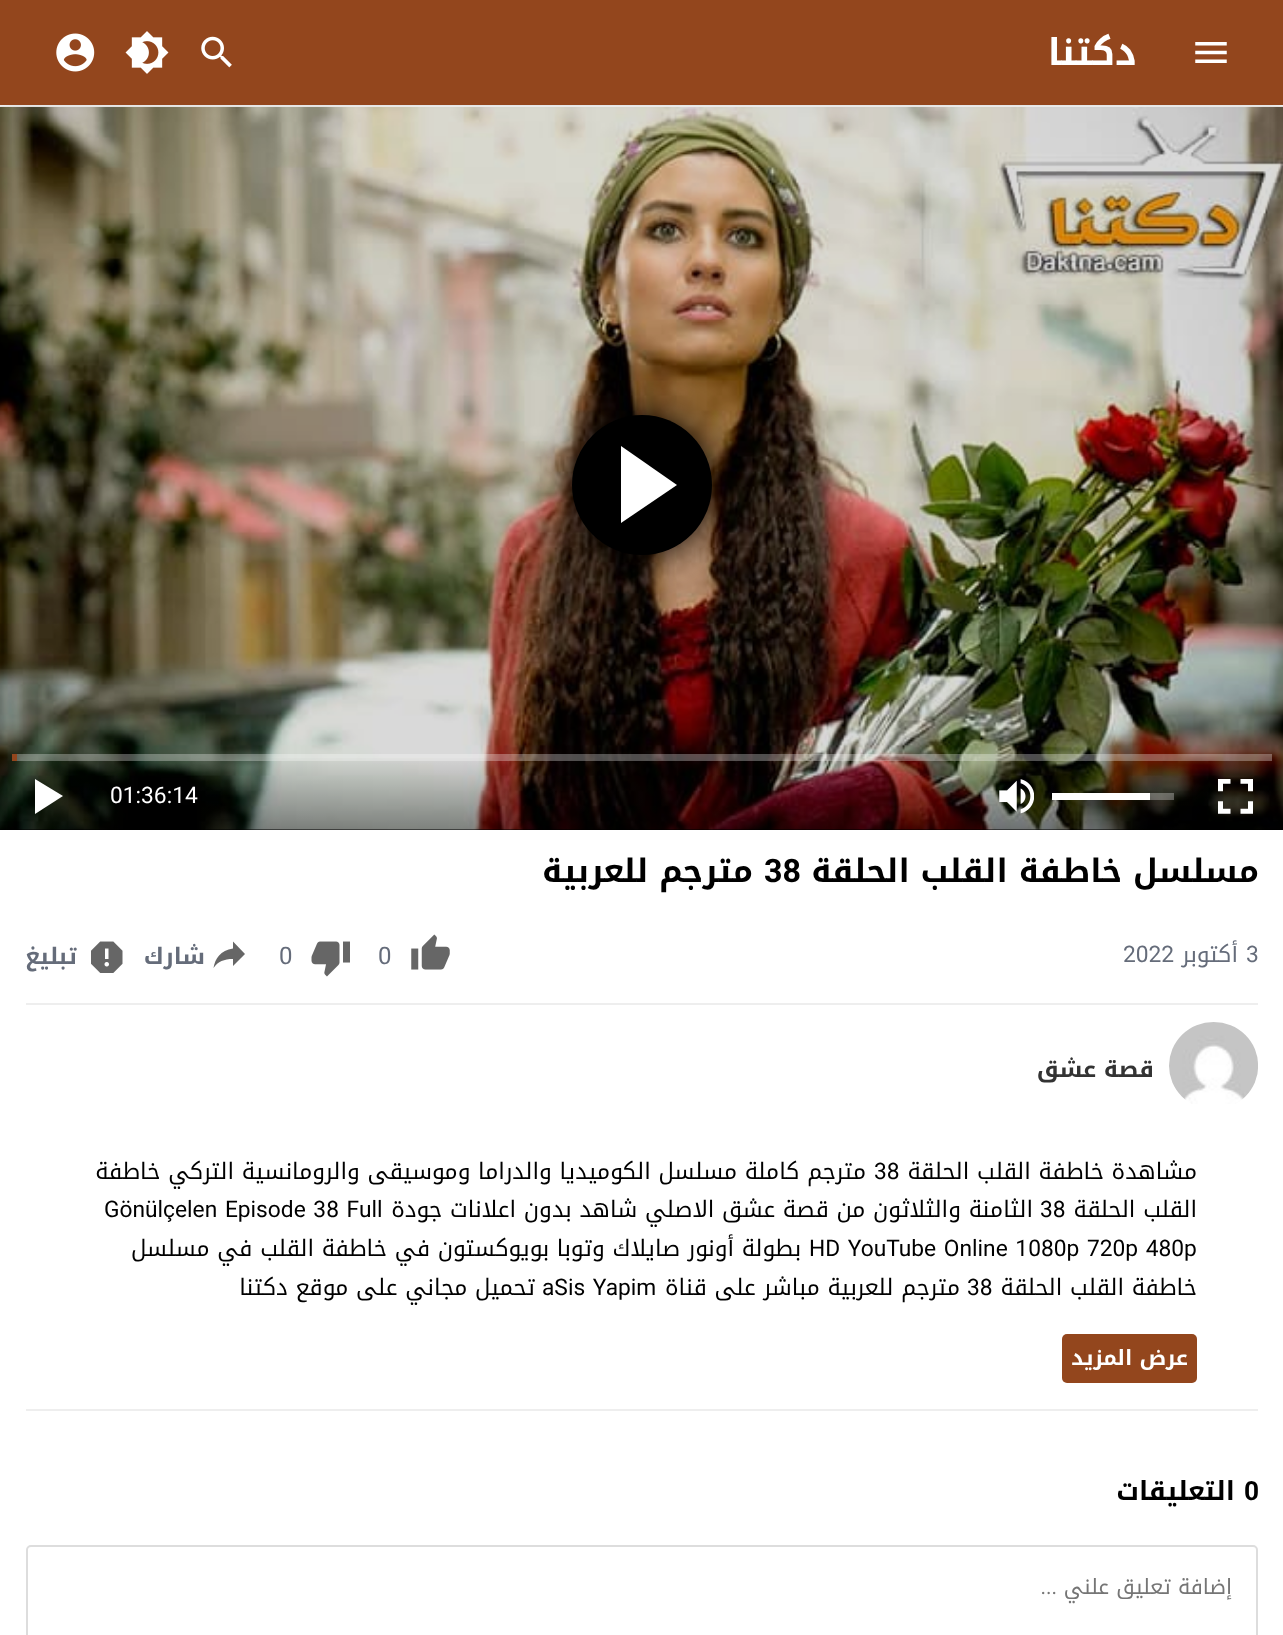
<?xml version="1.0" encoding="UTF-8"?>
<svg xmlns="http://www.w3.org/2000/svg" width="1283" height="1635">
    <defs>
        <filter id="blur1" x="-50%" y="-200%" width="200%" height="500%"><feGaussianBlur stdDeviation="4.5"/></filter>
        <filter id="blur2" x="-50%" y="-200%" width="200%" height="500%"><feGaussianBlur stdDeviation="17.5"/></filter>
        <linearGradient id="g1" gradientUnits="userSpaceOnUse" x1="642" y1="754" x2="642" y2="831"><stop offset="0" stop-color="#000000" stop-opacity="0"/><stop offset="1" stop-color="#000000" stop-opacity="0.4"/></linearGradient>
    </defs>
    <rect width="100%" height="100%" fill="#FFFFFF"/>
    <rect x="0" y="105" width="1283" height="2" fill="#EEEEEE"/>
    <rect x="0" y="829" width="1283" height="1" fill="#000000"/>
    <image x="0" y="106" width="1283" height="724" href="img_05.png"/>
    <rect x="9" y="12" width="1267" height="88" fill="#999999" filter="url(#blur1)"/>
    <rect x="0" y="0" width="1283" height="105" fill="#93461D"/>
    <image x="1195" y="42" width="32" height="21" href="img_01.png"/>
    <text x="1137" y="65" font-family="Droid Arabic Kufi" font-size="37" font-weight="700" direction="rtl" fill="#FFFFFF">دكتنا</text>
    <image x="201" y="36" width="31" height="32" href="img_02.png"/>
    <image x="125" y="31" width="44" height="43" href="img_03.png"/>
    <image x="56" y="33" width="39" height="39" href="img_04.png"/>
    <rect x="572" y="415" width="140" height="140" rx="70" fill="#000000" filter="url(#blur2)"/>
    <circle cx="642" cy="485" r="70" fill="#000000"/>
    <path d="M 621 523 V 446 L 677 485 Z" fill="#FFFFFF"/>
    <rect x="0" y="758" width="1283" height="72" fill="url(#g1)"/>
    <rect x="12" y="754" width="1260" height="7" fill="#FFFFFF" fill-opacity="0.3"/>
    <rect x="12" y="754" width="5" height="7" fill="#93461D"/>
    <image x="1218" y="779" width="35" height="35" href="img_06.png"/>
    <rect x="1150" y="793" width="24" height="7" fill="#FFFFFF" fill-opacity="0.3"/>
    <rect x="1052" y="793" width="98" height="7" fill="#FFFFFF"/>
    <image x="999" y="779" width="35" height="35" href="img_07.png"/>
    <text x="110" y="803" font-family="Roboto" font-size="22.75" fill="#FFFFFF">01:36:14</text>
    <path d="M 35 779 V 814 L 63 796 Z" fill="#FFFFFF"/>
    <text x="1259" y="882" font-family="Droid Arabic Kufi" font-size="32.25" font-weight="700" direction="rtl" fill="#000000">مسلسل خاطفة القلب الحلقة</text>
    <text x="764" y="882" font-family="Roboto" font-size="32.25" font-weight="700" fill="#000000">38</text>
    <text x="753" y="882" font-family="Droid Arabic Kufi" font-size="32.25" font-weight="700" direction="rtl" fill="#000000">مترجم للعربية</text>
    <rect x="26" y="1003" width="1232" height="2" fill="#EEEEEE"/>
    <text x="1246" y="962" font-family="Roboto" font-size="22.75" fill="#656C7A">3</text>
    <text x="1238" y="962" font-family="Droid Arabic Kufi" font-size="22.75" direction="rtl" fill="#656C7A">أكتوبر</text>
    <text x="1123" y="962" font-family="Roboto" font-size="22.75" fill="#656C7A">2022</text>
    <image x="411" y="934" width="39" height="36" href="img_08.png"/>
    <text x="378" y="964" font-family="Roboto" font-size="24" fill="#656C7A">0</text>
    <image x="311" y="941" width="39" height="36" href="img_09.png"/>
    <text x="279" y="964" font-family="Roboto" font-size="24" fill="#656C7A">0</text>
    <path d="M 245 954 L 233 941.5 V 948.5 C 220.5 950 215 959 213.5 968 C 218 961.5 224 959 233 959 V 966 Z" fill="#666666"/>
    <text x="205" y="964" font-family="Droid Arabic Kufi" font-size="22.75" font-weight="700" direction="rtl" fill="#656C7A">شارك</text>
    <image x="91" y="941" width="32" height="32" href="img_10.png"/>
    <text x="77" y="964" font-family="Droid Arabic Kufi" font-size="22.75" font-weight="700" direction="rtl" fill="#656C7A">تبليغ</text>
    <image x="1169" y="1022" width="89" height="82" href="img_11.png"/>
    <text x="1154" y="1077" font-family="Droid Arabic Kufi" font-size="22.75" font-weight="700" direction="rtl" fill="#333333">قصة عشق</text>
    <rect x="26" y="1409" width="1232" height="2" fill="#EEEEEE"/>
    <text x="1197" y="1179" font-family="Droid Arabic Kufi" font-size="22.75" direction="rtl" fill="#000000">مشاهدة خاطفة القلب الحلقة</text>
    <text x="874" y="1179" font-family="Roboto" font-size="22.75" fill="#000000">38</text>
    <text x="866" y="1179" font-family="Droid Arabic Kufi" font-size="22.75" direction="rtl" fill="#000000">مترجم كاملة مسلسل الكوميديا والدراما وموسيقى والرومانسية التركي خاطفة</text>
    <text x="1197" y="1217" font-family="Droid Arabic Kufi" font-size="22.75" direction="rtl" fill="#000000">القلب الحلقة</text>
    <text x="1040" y="1217" font-family="Roboto" font-size="22.75" fill="#000000">38</text>
    <text x="1033" y="1217" font-family="Droid Arabic Kufi" font-size="22.75" direction="rtl" fill="#000000">الثامنة والثلاثون من قصة عشق الاصلي شاهد بدون اعلانات جودة</text>
    <text x="104" y="1217" word-spacing="2" font-family="Roboto" font-size="22.75" fill="#000000">Gönülçelen Episode 38 Full</text>
    <text x="809" y="1256" word-spacing="2" font-family="Roboto" font-size="22.75" fill="#000000">HD YouTube Online 1080p 720p 480p</text>
    <text x="801" y="1256" font-family="Droid Arabic Kufi" font-size="22.75" direction="rtl" fill="#000000">بطولة أونور صايلاك وتوبا بويوكستون في خاطفة القلب في مسلسل</text>
    <text x="1197" y="1295" font-family="Droid Arabic Kufi" font-size="22.75" direction="rtl" fill="#000000">خاطفة القلب الحلقة</text>
    <text x="967" y="1295" font-family="Roboto" font-size="22.75" fill="#000000">38</text>
    <text x="960" y="1295" font-family="Droid Arabic Kufi" font-size="22.75" direction="rtl" fill="#000000">مترجم للعربية مباشر على قناة</text>
    <text x="542" y="1295" word-spacing="2" font-family="Roboto" font-size="22.75" fill="#000000">aSis Yapim</text>
    <text x="535" y="1295" font-family="Droid Arabic Kufi" font-size="22.75" direction="rtl" fill="#000000">تحميل مجاني على موقع دكتنا</text>
    <rect x="1062" y="1334" width="135" height="49" rx="5" fill="#93461D"/>
    <text x="1188" y="1365" font-family="Droid Arabic Kufi" font-size="21" font-weight="700" direction="rtl" fill="#FFFFFF">عرض المزيد</text>
    <text x="1244" y="1500" font-family="Roboto" font-size="26.25" font-weight="700" fill="#000000">0</text>
    <text x="1235" y="1500" font-family="Droid Arabic Kufi" font-size="26.25" font-weight="700" direction="rtl" fill="#000000">التعليقات</text>
    <rect x="27" y="1546" width="1230" height="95" rx="4" fill="none" stroke="#DDDDDD" stroke-width="2"/>
    <text x="1232" y="1594" font-family="Droid Arabic Kufi" font-size="21" direction="rtl" fill="#757575">إضافة تعليق علني</text>
    <text x="1057" y="1594" font-family="Roboto" font-size="21" direction="rtl" fill="#757575">...</text>
</svg>
